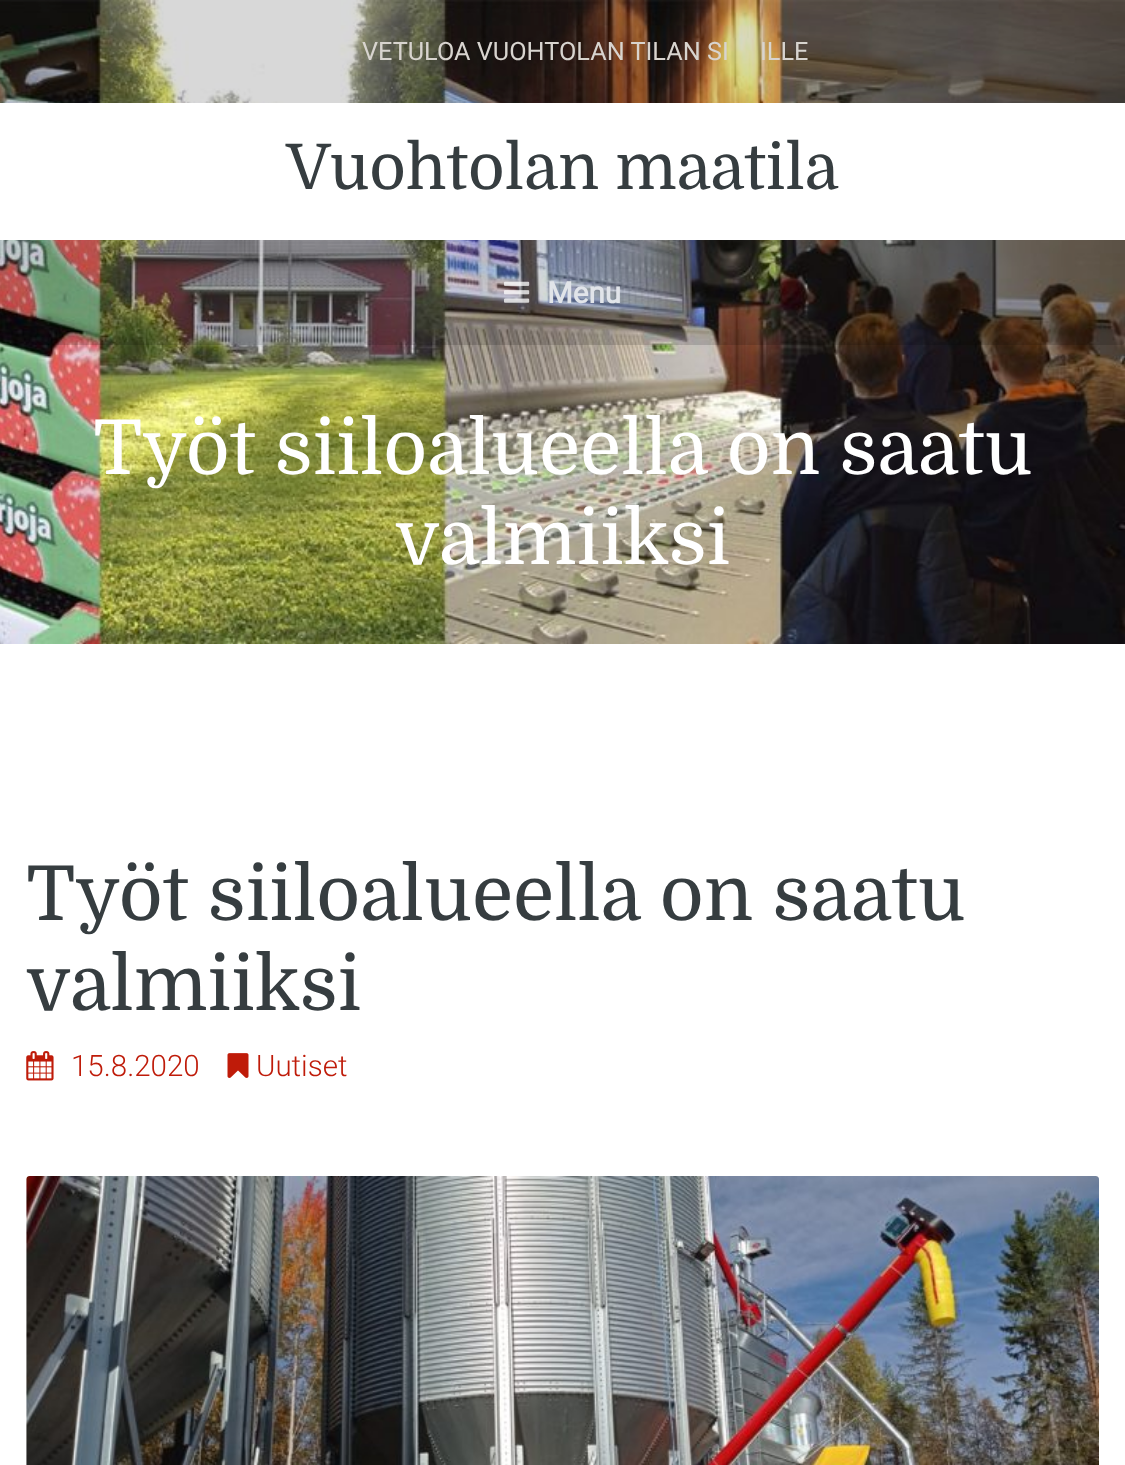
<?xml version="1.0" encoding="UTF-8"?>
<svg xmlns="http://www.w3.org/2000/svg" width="1125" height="1465">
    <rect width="100%" height="100%" fill="#FFFFFF"/>
    <image x="0" y="0" width="1125" height="644" href="img_01.png"/>
    <path d="M 0 0 H 1125 V 341 C 1125 343 1123 345 1121 345 H 4 C 2 345 0 343 0 341 Z" fill="#000000" fill-opacity="0.15"/>
    <text x="362" y="60" font-family="Roboto" font-size="25.25" fill="#D8D4CF">VETULOA VUOHTOLAN TILAN SI</text>
    <text x="760" y="60" font-family="Roboto" font-size="25.25" fill="#D8D4CF">ILLE</text>
    <rect x="0" y="103" width="1125" height="137" fill="#FFFFFF"/>
    <text x="286" y="189" font-family="Domine" font-size="63" fill="#363D40">Vuohtolan maatila</text>
    <image x="504" y="281" width="26" height="22" href="img_02.png"/>
    <text x="547" y="303" font-family="Roboto" font-size="29.5" font-weight="700" fill="#E1E4E9">Menu</text>
    <text x="93" y="474" font-family="Domine" font-size="75.6" fill="#FFFFFF">Työt siiloalueella on saatu</text>
    <text x="395" y="564" font-family="Domine" font-size="75.6" fill="#FFFFFF">valmiiksi</text>
    <text font-family="Domine" font-size="75.6" fill="#363D40">
        <tspan x="26" y="920">Työt siiloalueella on saatu</tspan>
        <tspan x="26" y="1010">valmiiksi</tspan>
    </text>
    <image x="26" y="1051" width="28" height="30" href="img_03.png"/>
    <text x="71" y="1076" font-family="Roboto" font-size="29.5" font-weight="300" fill="#BF1B09">15.8.2020</text>
    <image x="227" y="1053" width="22" height="25" href="img_04.png"/>
    <text x="256" y="1076" font-family="Roboto" font-size="29.5" font-weight="300" fill="#BF1B09">Uutiset</text>
    <image x="26" y="1176" width="1073" height="289" href="img_05.png"/>
</svg>
